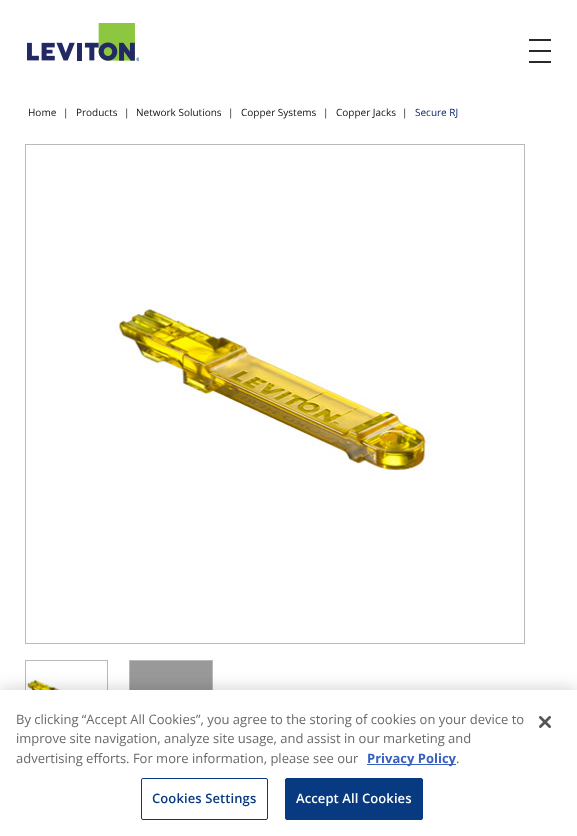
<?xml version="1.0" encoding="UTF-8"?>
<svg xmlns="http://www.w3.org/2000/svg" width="577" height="836">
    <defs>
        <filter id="blur1" x="-50%" y="-200%" width="200%" height="500%"><feGaussianBlur stdDeviation="9"/></filter>
    </defs>
    <rect width="100%" height="100%" fill="#FFFFFF"/>
    <image x="27" y="23" width="112" height="38" href="img_01.png"/>
    <rect x="529" y="39" width="22" height="2" fill="#292929"/>
    <rect x="529" y="50" width="22" height="2" fill="#292929"/>
    <rect x="529" y="61" width="22" height="2" fill="#292929"/>
    <text x="28" y="116" font-family="Open Sans" font-size="10" fill="#111111">Home</text>
    <text x="63" y="116" font-family="Open Sans" font-size="10" fill="#111111">|</text>
    <text x="76" y="116" font-family="Open Sans" font-size="10" fill="#111111">Products</text>
    <text x="124" y="116" font-family="Open Sans" font-size="10" fill="#111111">|</text>
    <text x="136" y="116" font-family="Open Sans" font-size="10" fill="#111111">Network Solutions</text>
    <text x="228" y="116" font-family="Open Sans" font-size="10" fill="#111111">|</text>
    <text x="241" y="116" font-family="Open Sans" font-size="10" fill="#111111">Copper Systems</text>
    <text x="323" y="116" font-family="Open Sans" font-size="10" fill="#111111">|</text>
    <text x="336" y="116" font-family="Open Sans" font-size="10" fill="#111111">Copper Jacks</text>
    <text x="402" y="116" font-family="Open Sans" font-size="10" fill="#111111">|</text>
    <text x="415" y="116" font-family="Open Sans" font-size="10" fill="#001D68">Secure RJ</text>
    <rect x="25.5" y="144.5" width="499" height="499" fill="none" stroke="#B7B9BB"/>
    <image x="115" y="304" width="316" height="167" href="img_02.png"/>
    <rect x="25.5" y="660.5" width="82" height="82" fill="none" stroke="#B7B9BB"/>
    <image x="26" y="679" width="79" height="11" href="img_03.png"/>
    <rect x="129.5" y="660.5" width="83" height="82" fill="none" stroke="#B7B9BB"/>
    <rect x="130" y="661" width="82" height="29" fill="#999999"/>
    <rect x="0" y="690" width="577" height="146" fill="#000000" fill-opacity="0.2" filter="url(#blur1)"/>
    <rect x="0" y="690" width="577" height="146" fill="#FFFFFF"/>
    <text font-family="Open Sans" font-size="13" fill="#696969">
        <tspan x="16" y="724">By clicking “Accept All Cookies”, you agree to the storing of cookies on your device to</tspan>
        <tspan x="16" y="743">improve site navigation, analyze site usage, and assist in our marketing and</tspan>
        <tspan x="16" y="763">advertising efforts. For more information, please see our</tspan>
    </text>
    <rect x="367" y="764" width="89" height="1" fill="#3860BE"/>
    <text x="367" y="763" font-family="Open Sans" font-size="13" font-weight="700" fill="#3860BE">Privacy Policy</text>
    <text x="456" y="763" font-family="Open Sans" font-size="13" fill="#696969">.</text>
    <rect x="141.5" y="778.5" width="126" height="41" rx="1.5" fill="none" stroke="#083A81"/>
    <text x="152" y="803" font-family="Open Sans" font-size="13" font-weight="600" letter-spacing="0.1" fill="#083A81">Cookies Settings</text>
    <rect x="285.5" y="778.5" width="137" height="41" rx="1.5" fill="#083A81" stroke="#083A81"/>
    <text x="296" y="803" font-family="Open Sans" font-size="13" font-weight="600" letter-spacing="0.1" fill="#FFFFFF">Accept All Cookies</text>
    <image x="539" y="716" width="12" height="12" href="img_04.png"/>
</svg>
